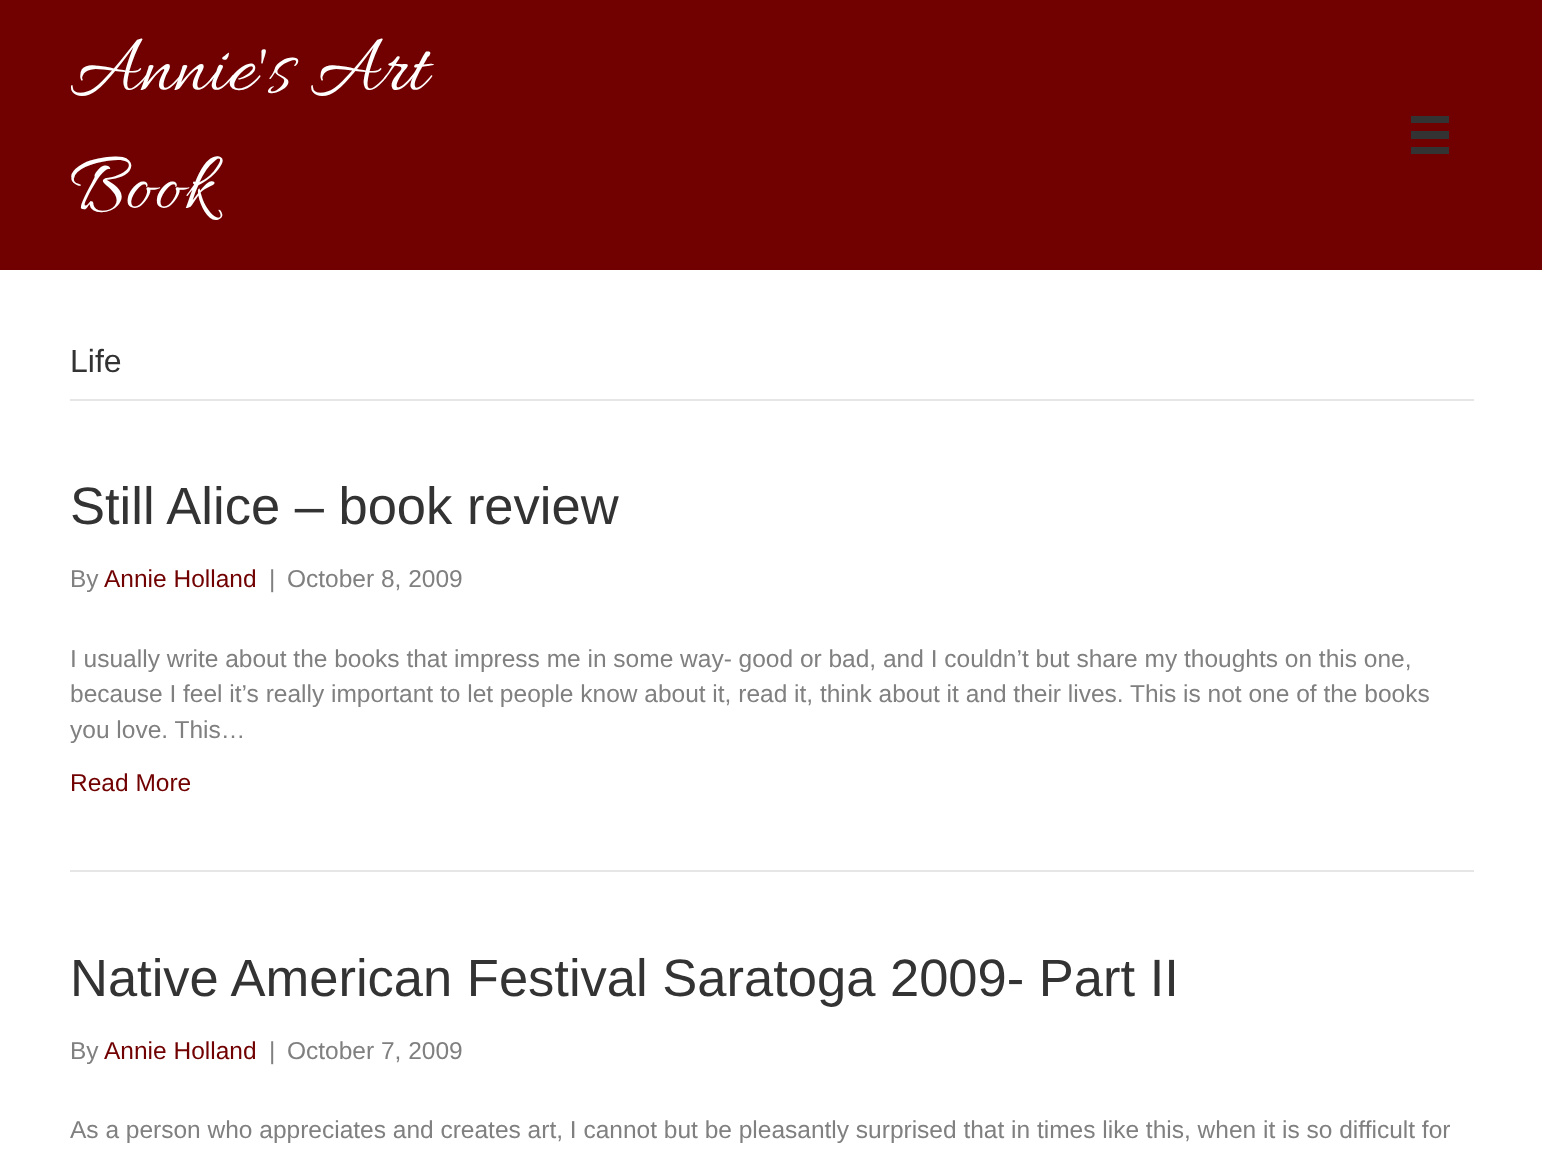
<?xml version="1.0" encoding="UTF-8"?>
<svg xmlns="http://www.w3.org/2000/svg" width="1542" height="1158">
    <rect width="100%" height="100%" fill="#FFFFFF"/>
    <rect x="0" y="0" width="1542" height="270" fill="#710001"/>
    <text font-family="Allura" font-size="84" fill="#FFFFFF">
        <tspan x="70" y="89">Annie's Art</tspan>
        <tspan x="70" y="207">Book</tspan>
    </text>
    <rect x="1411" y="116" width="38" height="7" fill="#333333"/>
    <rect x="1411" y="131" width="38" height="8" fill="#333333"/>
    <rect x="1411" y="147" width="38" height="7" fill="#333333"/>
    <rect x="70" y="399" width="1404" height="2" fill="#E6E6E6"/>
    <text x="70" y="372" font-family="Liberation Sans" font-size="32" fill="#333333">Life</text>
    <rect x="70" y="870" width="1404" height="2" fill="#E6E6E6"/>
    <text x="70" y="524" font-family="Liberation Sans" font-size="52.5" fill="#333333">Still Alice – book review</text>
    <text x="70" y="587" font-family="Liberation Sans" font-size="24.5" fill="#808080">By</text>
    <text x="104" y="587" font-family="Liberation Sans" font-size="24.5" fill="#710001">Annie Holland</text>
    <text x="269" y="587" font-family="Liberation Sans" font-size="24.5" fill="#808080">|</text>
    <text x="287" y="587" font-family="Liberation Sans" font-size="24.5" fill="#808080">October 8, 2009</text>
    <text font-family="Liberation Sans" font-size="24.5" fill="#808080">
        <tspan x="70" y="667">I usually write about the books that impress me in some way- good or bad, and I couldn’t but share my thoughts on this one,</tspan>
        <tspan x="70" y="702">because I feel it’s really important to let people know about it, read it, think about it and their lives. This is not one of the books</tspan>
        <tspan x="70" y="738">you love. This…</tspan>
    </text>
    <text x="70" y="791" font-family="Liberation Sans" font-size="24.5" fill="#710001">Read More</text>
    <text x="70" y="996" font-family="Liberation Sans" font-size="52.5" fill="#333333">Native American Festival Saratoga 2009- Part II</text>
    <text x="70" y="1059" font-family="Liberation Sans" font-size="24.5" fill="#808080">By</text>
    <text x="104" y="1059" font-family="Liberation Sans" font-size="24.5" fill="#710001">Annie Holland</text>
    <text x="269" y="1059" font-family="Liberation Sans" font-size="24.5" fill="#808080">|</text>
    <text x="287" y="1059" font-family="Liberation Sans" font-size="24.5" fill="#808080">October 7, 2009</text>
    <text x="70" y="1138" font-family="Liberation Sans" font-size="24.5" fill="#808080">As a person who appreciates and creates art, I cannot but be pleasantly surprised that in times like this, when it is so difficult for</text>
</svg>
